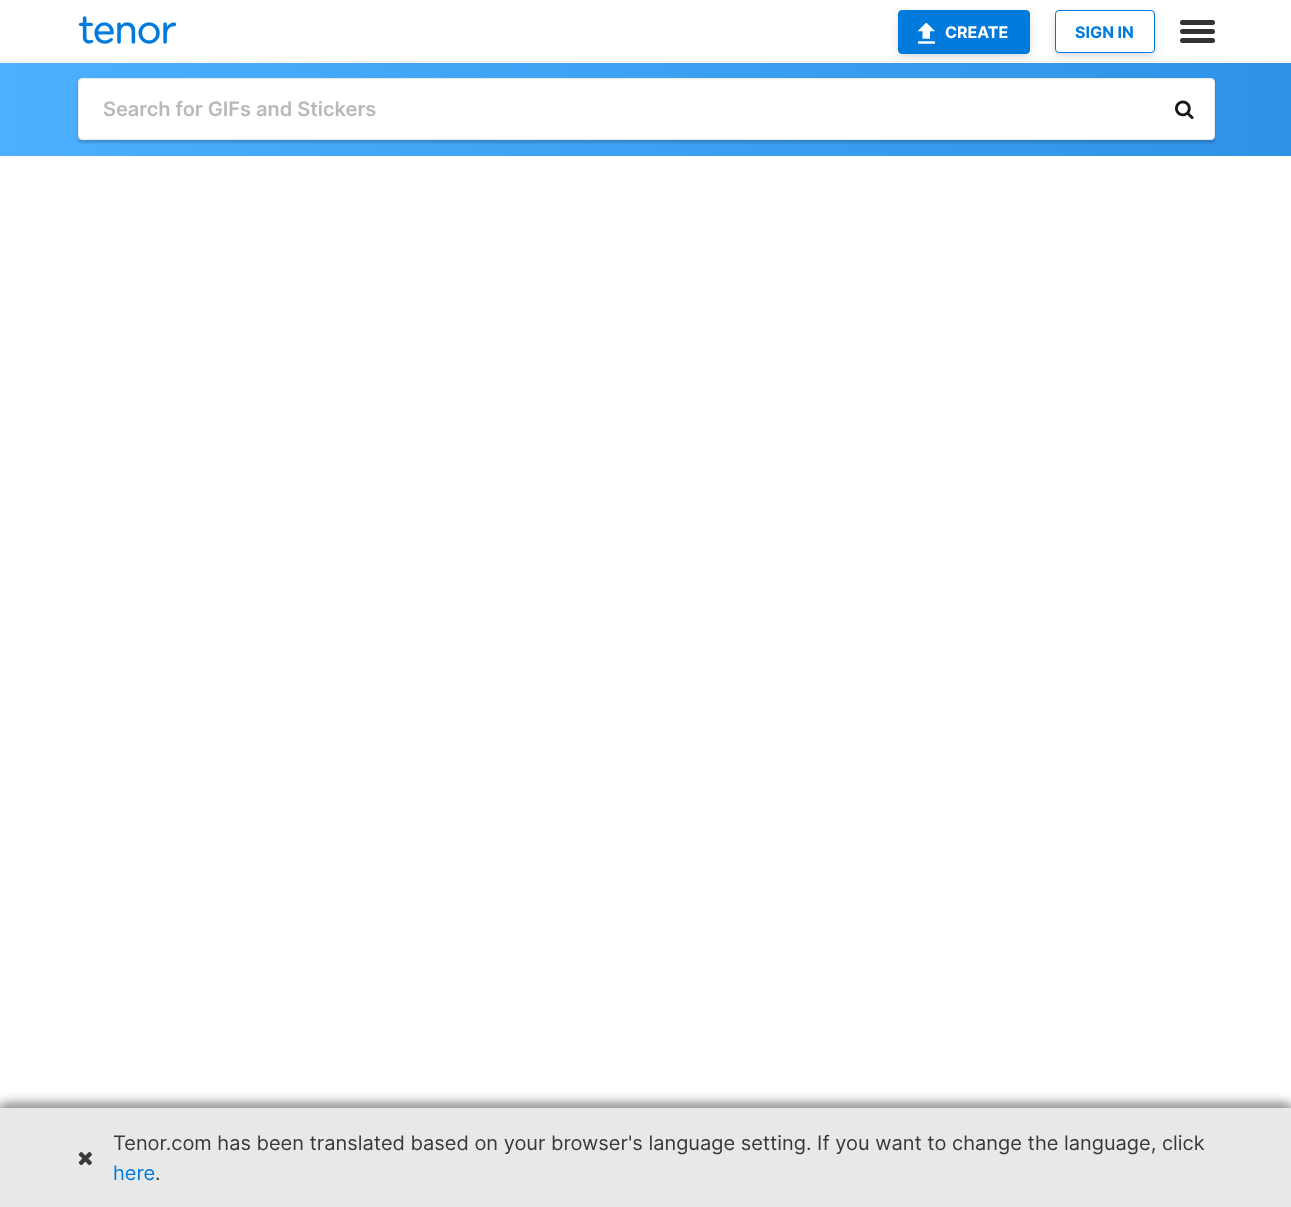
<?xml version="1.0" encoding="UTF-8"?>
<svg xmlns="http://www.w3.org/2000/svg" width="1291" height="1207">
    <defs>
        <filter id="blur1" x="-50%" y="-200%" width="200%" height="500%"><feGaussianBlur stdDeviation="4"/></filter>
        <filter id="blur2" x="-50%" y="-200%" width="200%" height="500%"><feGaussianBlur stdDeviation="2"/></filter>
        <linearGradient id="g1" gradientUnits="userSpaceOnUse" x1="0" y1="109" x2="1291" y2="109"><stop offset="0" stop-color="#4CAFFF"/><stop offset="1" stop-color="#2E93E6"/></linearGradient>
        <filter id="blur3" x="-50%" y="-200%" width="200%" height="500%"><feGaussianBlur stdDeviation="1"/></filter>
        <filter id="blur4" x="-50%" y="-200%" width="200%" height="500%"><feGaussianBlur stdDeviation="6"/></filter>
    </defs>
    <rect width="100%" height="100%" fill="#FFFFFF"/>
    <rect x="0" y="61" width="1291" height="1" fill="#EBF2F7"/>
    <image x="78" y="16" width="99" height="28" href="img_01.png"/>
    <rect x="898" y="15" width="132" height="44" rx="4" fill="#53535C" fill-opacity="0.11" filter="url(#blur1)"/>
    <rect x="898" y="11" width="132" height="44" rx="4" fill="#000000" fill-opacity="0.08" filter="url(#blur2)"/>
    <rect x="898.5" y="10.5" width="131" height="43" rx="3.5" fill="#007ADD" stroke="#007ADD"/>
    <image x="918" y="23" width="17" height="21" href="img_02.png"/>
    <text x="945" y="38" font-family="Inter" font-size="16" font-weight="700" fill="#FFFFFF">CREATE</text>
    <rect x="1055" y="15" width="100" height="43" rx="4" fill="#53535C" fill-opacity="0.11" filter="url(#blur1)"/>
    <rect x="1055" y="11" width="100" height="43" rx="4" fill="#000000" fill-opacity="0.08" filter="url(#blur2)"/>
    <rect x="1055.5" y="10.5" width="99" height="42" rx="3.5" fill="#FFFFFF" stroke="#007ADD"/>
    <text x="1075" y="38" font-family="Inter" font-size="16" font-weight="700" fill="#007ADD">SIGN IN</text>
    <rect x="1180" y="29" width="35" height="5" rx="2.5" fill="#333333"/>
    <rect x="1180" y="20" width="35" height="5" rx="2.5" fill="#333333"/>
    <rect x="1180" y="38" width="35" height="5" rx="2.5" fill="#333333"/>
    <rect x="0" y="63" width="1291" height="93" fill="url(#g1)"/>
    <rect x="78" y="80" width="1137" height="63" rx="4" fill="#000000" fill-opacity="0.16" filter="url(#blur3)"/>
    <rect x="78.5" y="78.5" width="1136" height="61" rx="3.5" fill="#FFFFFF" stroke="#E8E8E8"/>
    <text x="103" y="116" font-family="Inter" font-size="20" font-weight="600" fill="#B9B9B9">Search for GIFs and Stickers</text>
    <image x="1175" y="100" width="19" height="20" href="img_03.png"/>
    <rect x="0" y="1105" width="1291" height="100" fill="#999999" filter="url(#blur4)"/>
    <rect x="0" y="1105" width="1291" height="100" fill="#999999" filter="url(#blur4)"/>
    <rect x="0" y="1108" width="1291" height="99" fill="#E8E8E8"/>
    <image x="78" y="1151" width="14" height="15" href="img_04.png"/>
    <text x="113" y="1150" font-family="Inter" font-size="20" fill="#373A3C">Tenor.com has been translated based on your browser's language setting. If you want to change the language, click</text>
    <text x="113" y="1180" font-family="Inter" font-size="20" fill="#007ADD">here</text>
    <text x="155" y="1180" font-family="Inter" font-size="20" fill="#373A3C">.</text>
</svg>
